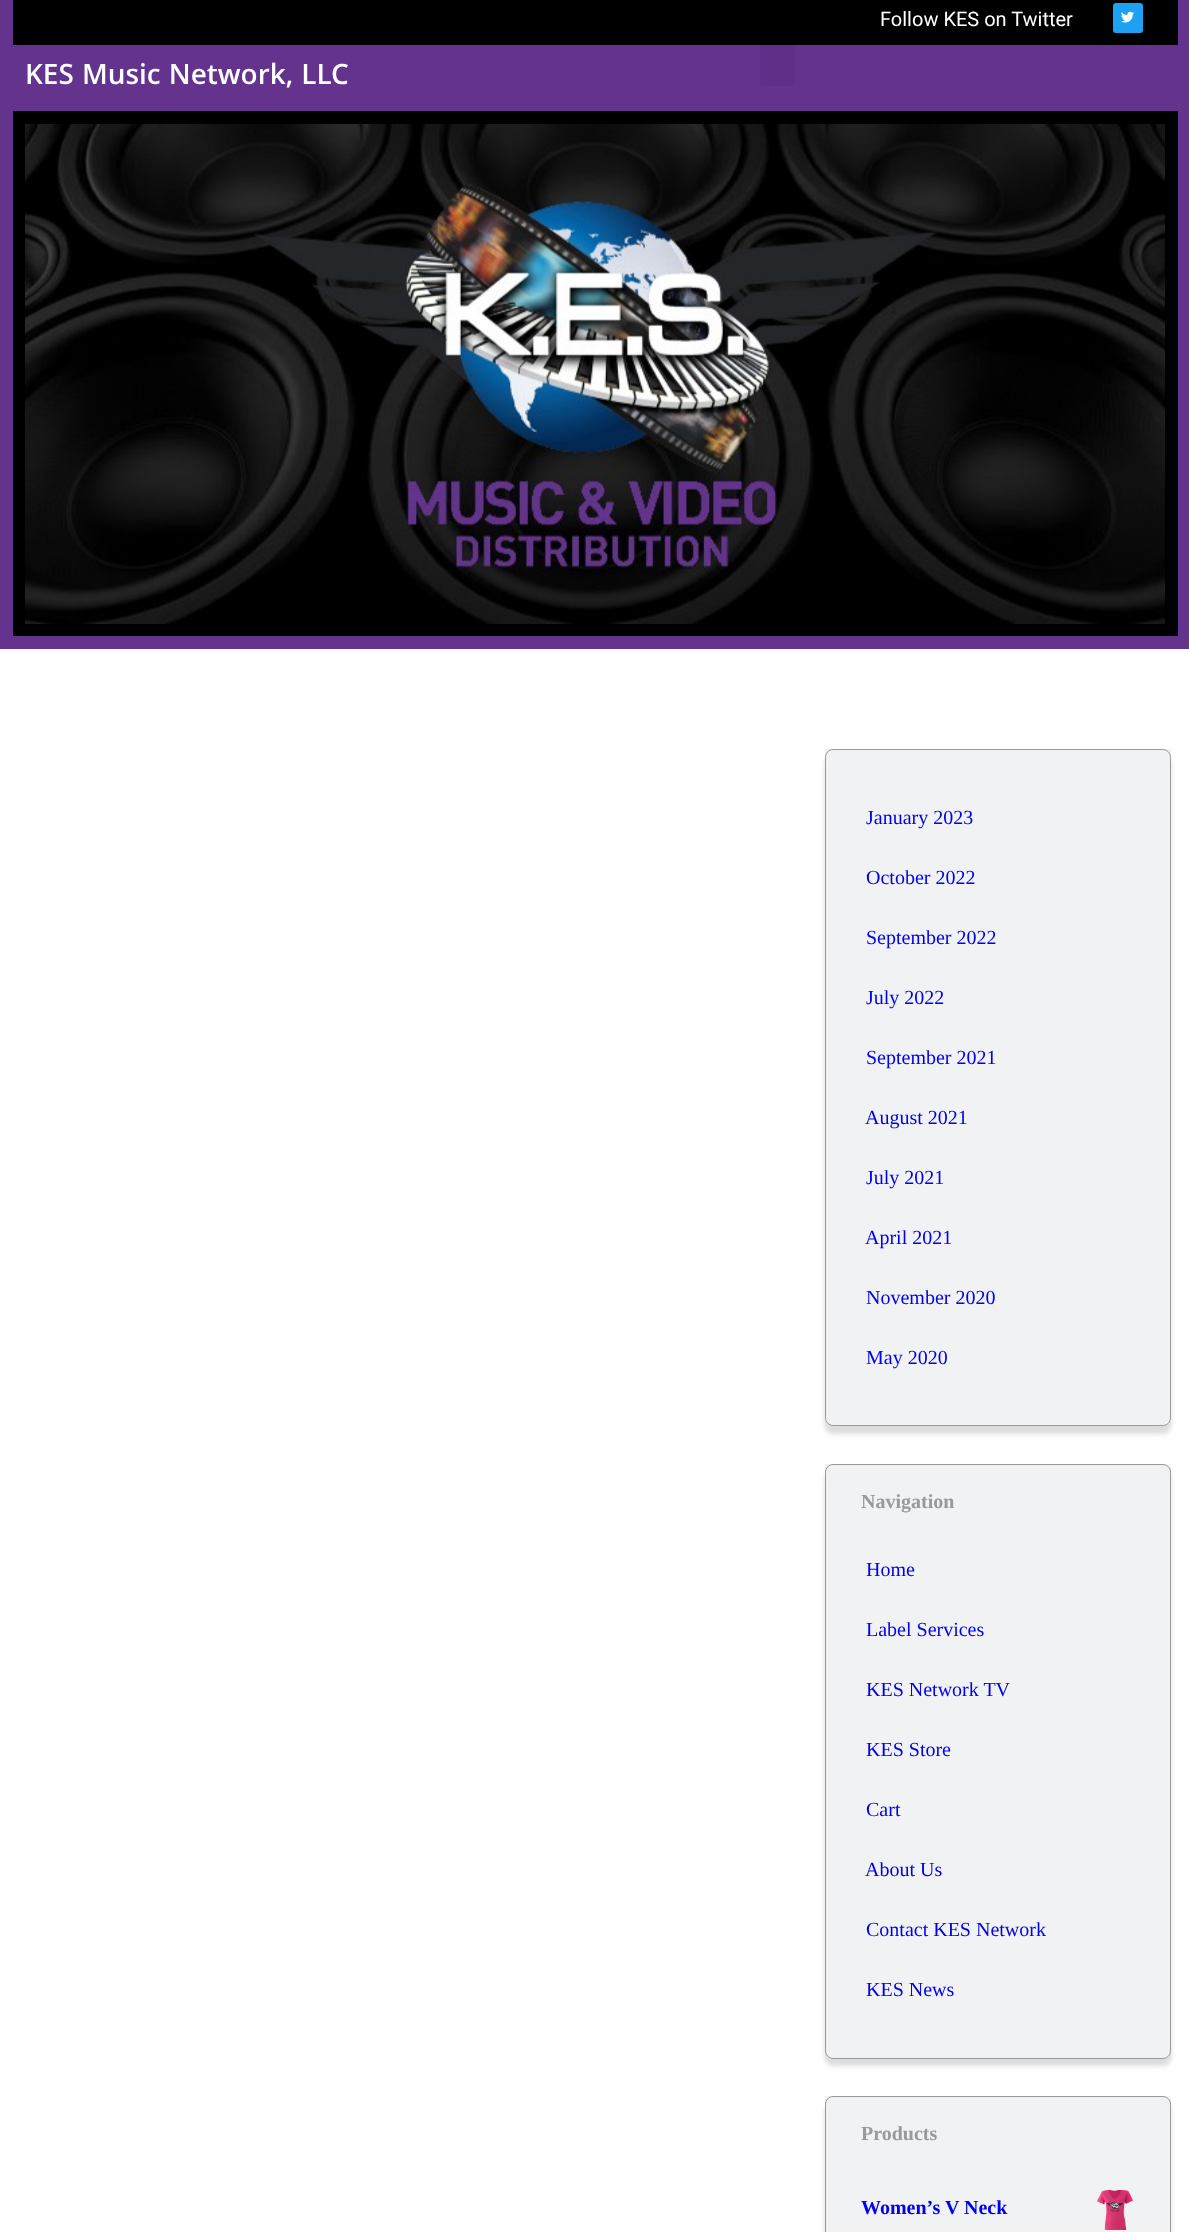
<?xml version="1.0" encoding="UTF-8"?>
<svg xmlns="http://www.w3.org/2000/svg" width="1189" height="2232">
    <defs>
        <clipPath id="clip1"><path d="M 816 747 H 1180 V 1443 H 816 Z M 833 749 H 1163 C 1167.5 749 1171 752.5 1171 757 V 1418 C 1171 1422.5 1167.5 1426 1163 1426 H 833 C 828.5 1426 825 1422.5 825 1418 V 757 C 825 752.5 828.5 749 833 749 Z" clip-rule="evenodd"/></clipPath>
        <filter id="blur1" x="-50%" y="-200%" width="200%" height="500%"><feGaussianBlur stdDeviation="2.5"/></filter>
        <clipPath id="clip2"><path d="M 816 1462 H 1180 V 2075 H 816 Z M 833 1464 H 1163 C 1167.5 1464 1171 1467.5 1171 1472 V 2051 C 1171 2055.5 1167.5 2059 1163 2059 H 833 C 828.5 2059 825 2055.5 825 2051 V 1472 C 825 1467.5 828.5 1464 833 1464 Z" clip-rule="evenodd"/></clipPath>
        <clipPath id="clip3"><path d="M 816 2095 H 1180 V 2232 H 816 Z M 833 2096 H 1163 C 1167.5 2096 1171 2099.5 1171 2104 V 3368 C 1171 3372.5 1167.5 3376 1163 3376 H 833 C 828.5 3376 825 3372.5 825 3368 V 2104 C 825 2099.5 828.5 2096 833 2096 Z" clip-rule="evenodd"/></clipPath>
    </defs>
    <rect width="100%" height="100%" fill="#FFFFFF"/>
    <rect x="0" y="0" width="1189" height="649" fill="#63338E"/>
    <rect x="13" y="0" width="1165" height="45" fill="#000000"/>
    <text x="880" y="26" font-family="Roboto" font-size="20" fill="#FFFFFF">Follow KES on Twitter</text>
    <rect x="1113" y="3" width="30" height="30" rx="3" fill="#1DA1F2"/>
    <image x="1121" y="11" width="13" height="12" href="img_01.png"/>
    <text x="25" y="84" font-family="Khula" font-size="30" font-weight="600" fill="#FFFFFF">KES Music Network, LLC</text>
    <rect x="760" y="45" width="35" height="41" rx="4" fill="#5E3087"/>
    <rect x="13" y="111" width="1165" height="525" fill="#000000"/>
    <image x="25" y="124" width="1140" height="500" href="img_02.png"/>
    <rect x="825" y="749" width="346" height="677" fill="#F1F2F3"/>
    <g clip-path="url(#clip1)">
        <rect x="825" y="756" width="346" height="678" rx="8" fill="#DCDCDC" filter="url(#blur1)"/>
    </g>
    <rect x="825.5" y="749.5" width="345" height="676" rx="7.5" fill="none" stroke="#999999"/>
    <text x="866" y="824" font-family="Liberation Serif" font-size="20" fill="#0000EE">January 2023</text>
    <text x="866" y="884" font-family="Liberation Serif" font-size="20" fill="#0000EE">October 2022</text>
    <text x="866" y="944" font-family="Liberation Serif" font-size="20" fill="#0000EE">September 2022</text>
    <text x="866" y="1004" font-family="Liberation Serif" font-size="20" fill="#0000EE">July 2022</text>
    <text x="866" y="1064" font-family="Liberation Serif" font-size="20" fill="#0000EE">September 2021</text>
    <text x="865" y="1124" font-family="Liberation Serif" font-size="20" fill="#0000EE">August 2021</text>
    <text x="866" y="1184" font-family="Liberation Serif" font-size="20" fill="#0000EE">July 2021</text>
    <text x="865" y="1244" font-family="Liberation Serif" font-size="20" fill="#0000EE">April 2021</text>
    <text x="866" y="1304" font-family="Liberation Serif" font-size="20" fill="#0000EE">November 2020</text>
    <text x="866" y="1364" font-family="Liberation Serif" font-size="20" fill="#0000EE">May 2020</text>
    <rect x="825" y="1464" width="346" height="595" fill="#F1F2F3"/>
    <g clip-path="url(#clip2)">
        <rect x="825" y="1471" width="346" height="595" rx="8" fill="#DCDCDC" filter="url(#blur1)"/>
    </g>
    <rect x="825.5" y="1464.5" width="345" height="594" rx="7.5" fill="none" stroke="#999999"/>
    <text x="861" y="1508" font-family="Liberation Serif" font-size="20" font-weight="700" fill="#999999">Navigation</text>
    <text x="866" y="1576" font-family="Liberation Serif" font-size="20" fill="#0000EE">Home</text>
    <text x="866" y="1636" font-family="Liberation Serif" font-size="20" fill="#0000EE">Label Services</text>
    <text x="866" y="1696" font-family="Liberation Serif" font-size="20" fill="#0000EE">KES Network TV</text>
    <text x="866" y="1756" font-family="Liberation Serif" font-size="20" fill="#0000EE">KES Store</text>
    <text x="866" y="1816" font-family="Liberation Serif" font-size="20" fill="#0000EE">Cart</text>
    <text x="865" y="1876" font-family="Liberation Serif" font-size="20" fill="#0000EE">About Us</text>
    <text x="866" y="1936" font-family="Liberation Serif" font-size="20" fill="#0000EE">Contact KES Network</text>
    <text x="866" y="1996" font-family="Liberation Serif" font-size="20" fill="#0000EE">KES News</text>
    <rect x="825" y="2096" width="346" height="136" fill="#F1F2F3"/>
    <g clip-path="url(#clip3)">
        <rect x="825" y="2104" width="346" height="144" rx="8" fill="#DCDCDC" filter="url(#blur1)"/>
    </g>
    <rect x="825.5" y="2096.5" width="345" height="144" rx="7.5" fill="none" stroke="#999999"/>
    <text x="861" y="2140" font-family="Liberation Serif" font-size="20" font-weight="700" fill="#999999">Products</text>
    <text x="861" y="2214" font-family="Liberation Serif" font-size="20" font-weight="700" fill="#0000EE">Women’s V Neck</text>
    <image x="1097" y="2190" width="36" height="40" href="img_03.png"/>
</svg>
